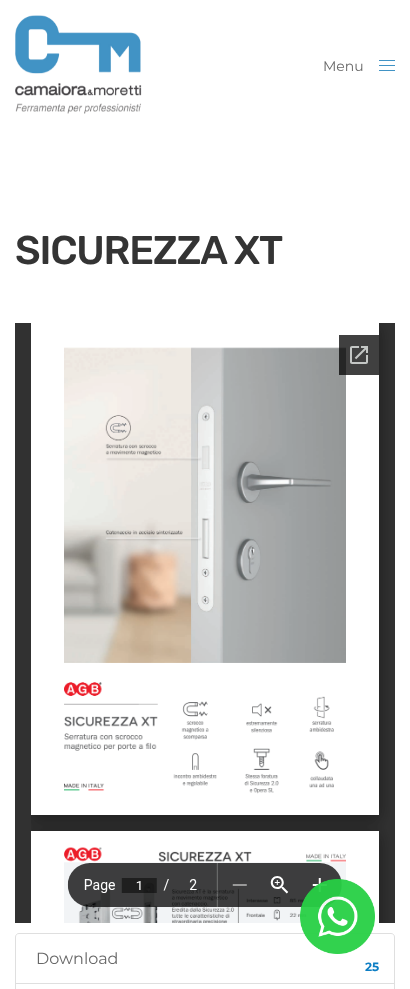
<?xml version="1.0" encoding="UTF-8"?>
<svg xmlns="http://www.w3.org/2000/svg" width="410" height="989">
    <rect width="100%" height="100%" fill="#FFFFFF"/>
    <image x="15" y="15" width="127" height="99" href="img_01.png"/>
    <text x="323" y="71" font-family="Montserrat" font-size="14" font-weight="100" fill="#686868">Menu</text>
    <rect x="379" y="60" width="16" height="1" fill="#4193C5"/>
    <rect x="379" y="65" width="16" height="1" fill="#4193C5"/>
    <rect x="379" y="70" width="16" height="1" fill="#4193C5"/>
    <text x="15" y="264" font-family="Rubik" font-size="40" font-weight="500" letter-spacing="-1.25" fill="#343434">SICUREZZA XT</text>
    <image x="15" y="323" width="380" height="600" href="img_02.png"/>
    <path d="M 19 933.5 H 391 C 393 933.5 394.5 935 394.5 937 V 983.5 H 15.5 V 937 C 15.5 935 17 933.5 19 933.5 Z" fill="none" stroke="#DFDFDF"/>
    <text x="36" y="964" font-family="Montserrat" font-size="16" font-weight="100" fill="#686868">Download</text>
    <text x="365" y="971" font-family="Montserrat" font-size="12" font-weight="700" fill="#0D7EC4">25</text>
    <rect x="15.5" y="983.5" width="379" height="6" fill="none" stroke="#DFDFDF"/>
    <image x="300" y="879" width="75" height="75" href="img_03.png"/>
</svg>
